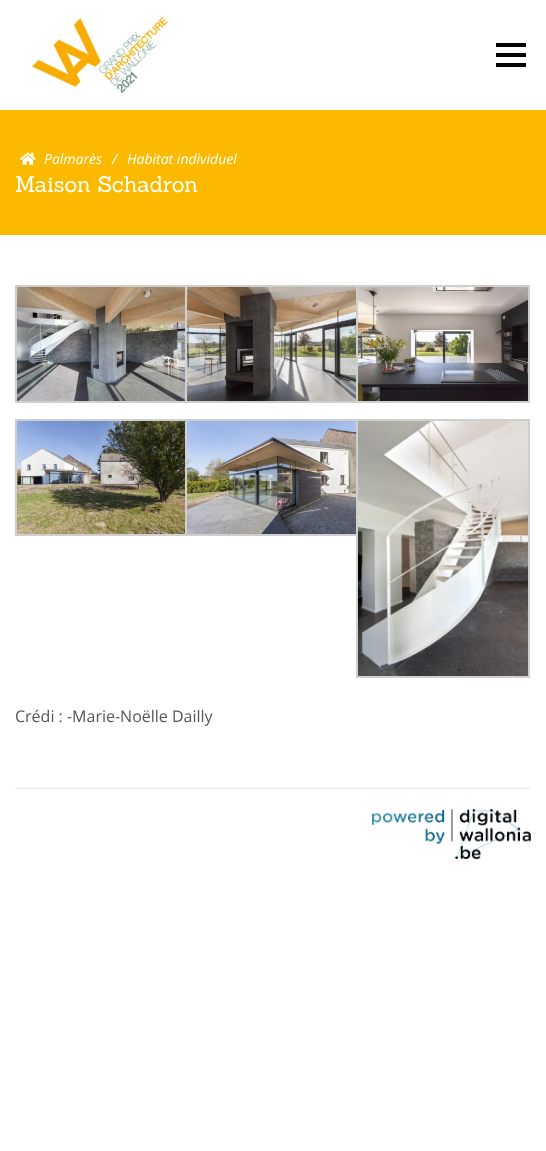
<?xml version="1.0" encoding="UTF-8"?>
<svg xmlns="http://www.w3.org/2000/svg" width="546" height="1151">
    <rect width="100%" height="100%" fill="#FFFFFF"/>
    <image x="31" y="16" width="138" height="78" href="img_01.png"/>
    <rect x="496" y="43" width="30" height="4" fill="#020303"/>
    <rect x="496" y="53" width="30" height="4" fill="#020303"/>
    <rect x="496" y="63" width="30" height="4" fill="#020303"/>
    <rect x="0" y="110" width="546" height="125" fill="#FBBA00"/>
    <image x="20" y="152" width="16" height="13" href="img_02.png"/>
    <text x="44" y="164" font-family="Open Sans" font-size="14" font-style="italic" fill="#FFFFFF">Palmarès</text>
    <text x="112" y="164" font-family="Open Sans" font-size="14" font-style="italic" fill="#FFFFFF">/</text>
    <text x="127" y="164" font-family="Open Sans" font-size="14" font-style="italic" fill="#FFFFFF">Habitat individuel</text>
    <text x="15" y="192" font-family="Sanchez" font-size="22" fill="#FFFFFF">Maison Schadron</text>
    <rect x="16" y="286" width="172" height="116" fill="none" stroke="#CFCFCF" stroke-width="2"/>
    <image x="17" y="287" width="168" height="114" href="img_03.png"/>
    <rect x="186" y="286" width="173" height="116" fill="none" stroke="#CFCFCF" stroke-width="2"/>
    <image x="187" y="287" width="169" height="114" href="img_04.png"/>
    <rect x="357" y="286" width="172" height="116" fill="none" stroke="#CFCFCF" stroke-width="2"/>
    <image x="358" y="287" width="170" height="114" href="img_05.png"/>
    <rect x="16" y="420" width="172" height="115" fill="none" stroke="#CFCFCF" stroke-width="2"/>
    <image x="17" y="421" width="168" height="113" href="img_06.png"/>
    <rect x="186" y="420" width="173" height="115" fill="none" stroke="#CFCFCF" stroke-width="2"/>
    <image x="187" y="421" width="169" height="113" href="img_07.png"/>
    <rect x="357" y="420" width="172" height="257" fill="none" stroke="#CFCFCF" stroke-width="2"/>
    <image x="358" y="421" width="170" height="255" href="img_08.png"/>
    <text x="15" y="722" font-family="Open Sans" font-size="16" fill="#575756">Crédi : -Marie-Noëlle Dailly</text>
    <rect x="15" y="788" width="516" height="1" fill="#E6E6E6"/>
    <image x="372" y="809" width="159" height="50" href="img_09.png"/>
</svg>
